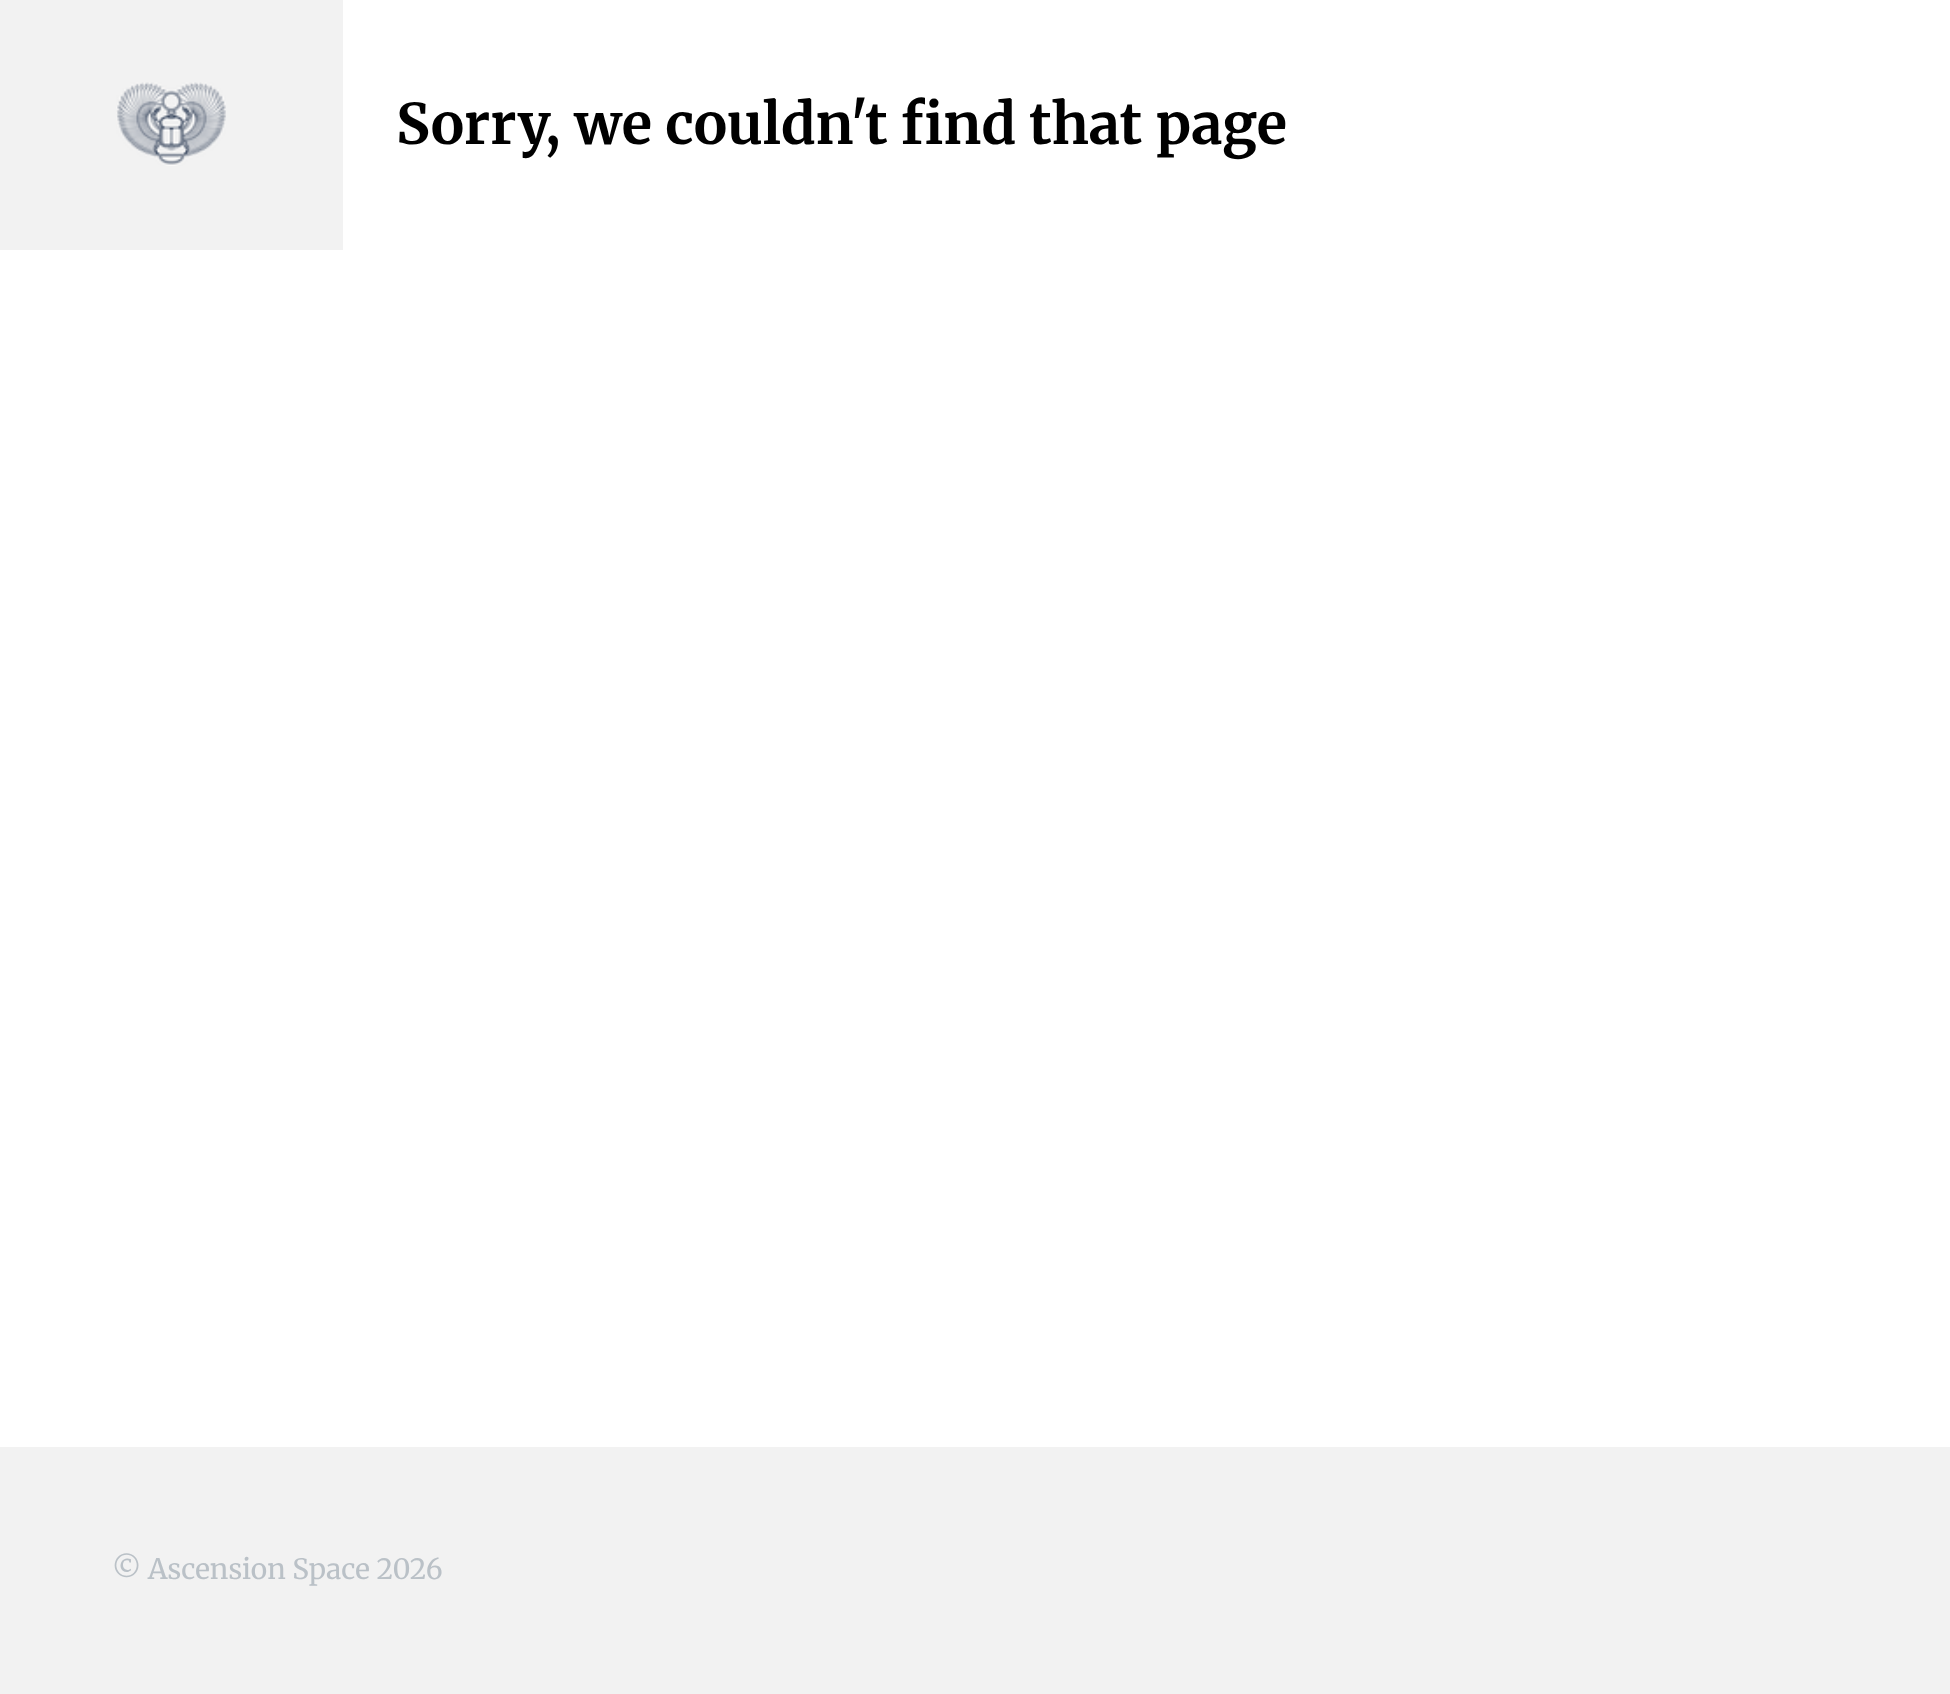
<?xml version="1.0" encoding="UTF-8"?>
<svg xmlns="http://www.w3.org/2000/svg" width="1950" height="1694">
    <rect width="100%" height="100%" fill="#FFFFFF"/>
    <rect x="0" y="0" width="343" height="250" fill="#F2F2F2"/>
    <image x="116" y="82" width="110" height="84" href="img_01.png"/>
    <text x="396" y="144" font-family="Merriweather" font-size="56" font-weight="700" fill="#000000">Sorry, we couldn't find that page</text>
    <rect x="0" y="1447" width="1950" height="247" fill="#F2F2F2"/>
    <text x="112" y="1579" font-family="Merriweather" font-size="28" fill="#BAC1C7">© Ascension Space 2026</text>
</svg>
